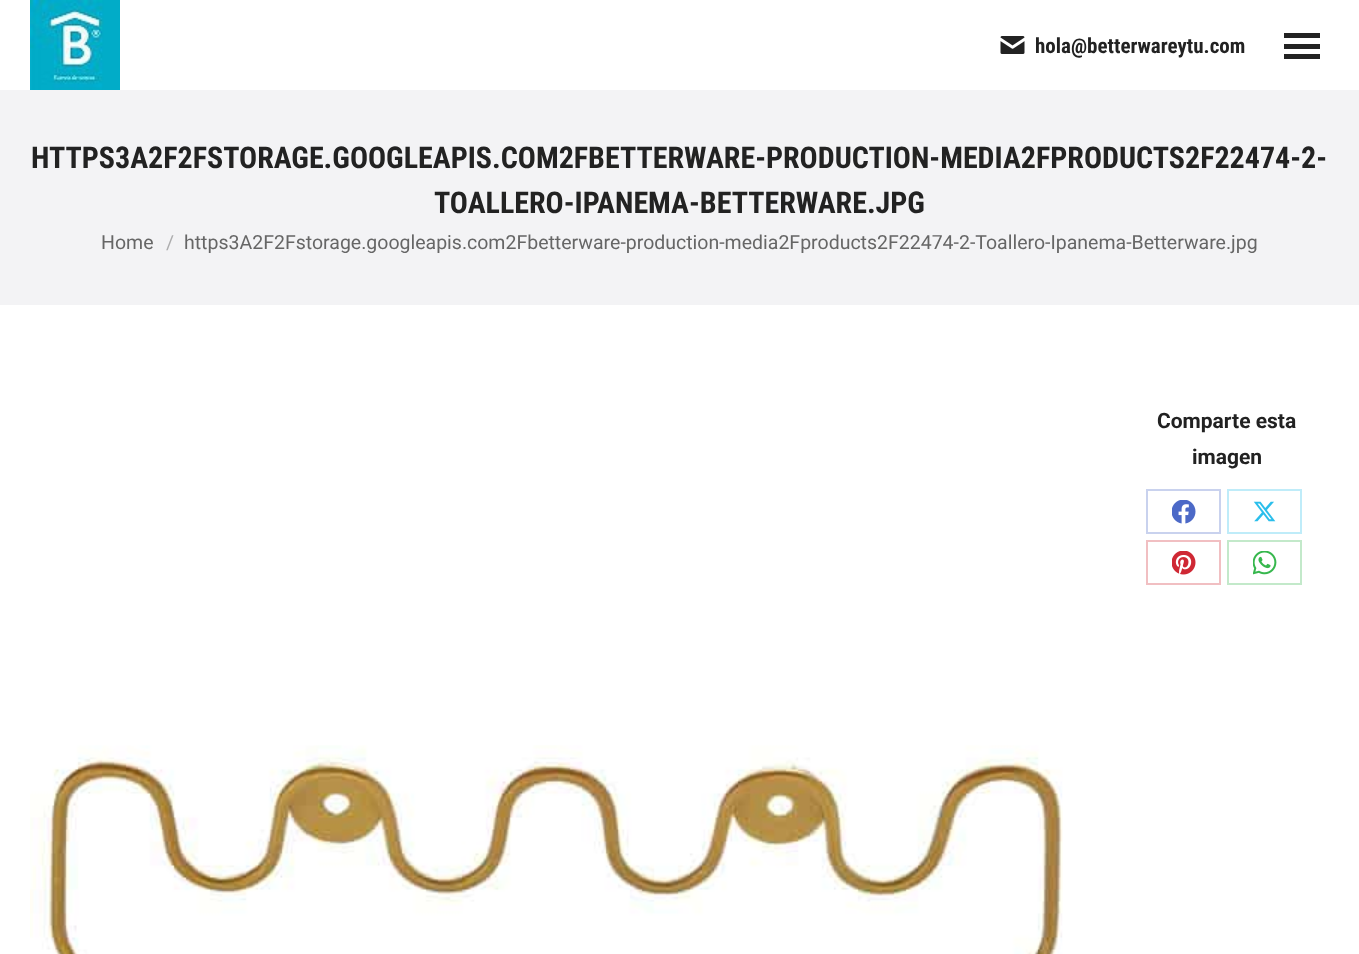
<?xml version="1.0" encoding="UTF-8"?>
<svg xmlns="http://www.w3.org/2000/svg" width="1359" height="954">
    <rect width="100%" height="100%" fill="#FFFFFF"/>
    <image x="30" y="0" width="90" height="90" href="img_01.png"/>
    <image x="1000" y="36" width="25" height="18" href="img_02.png"/>
    <text x="1035" y="53" font-family="Roboto Condensed" font-size="21" font-weight="700" fill="#222222">hola@betterwareytu.com</text>
    <rect x="1284" y="33" width="36" height="5" fill="#222222"/>
    <rect x="1284" y="44" width="36" height="5" fill="#222222"/>
    <rect x="1284" y="54" width="36" height="5" fill="#222222"/>
    <rect x="0" y="90" width="1359" height="215" fill="#F3F3F5"/>
    <text x="31" y="168" font-family="Roboto Condensed" font-size="30" font-weight="700" fill="#222222">HTTPS3A2F2FSTORAGE.GOOGLEAPIS.COM2FBETTERWARE-PRODUCTION-MEDIA2FPRODUCTS2F22474-2-</text>
    <text x="434" y="213" font-family="Roboto Condensed" font-size="30" font-weight="700" fill="#222222">TOALLERO-IPANEMA-BETTERWARE.JPG</text>
    <text x="101" y="249" font-family="Roboto" font-size="19.5" fill="#666666">Home</text>
    <text x="166" y="249" font-family="Roboto" font-size="19.5" fill="#ADADAE">/</text>
    <text x="184" y="249" font-family="Roboto" font-size="19.5" fill="#666666">https3A2F2Fstorage.googleapis.com2Fbetterware-production-media2Fproducts2F22474-2-Toallero-Ipanema-Betterware.jpg</text>
    <text x="1157" y="428" font-family="Roboto" font-size="21" font-weight="700" fill="#222222">Comparte esta</text>
    <text x="1192" y="464" font-family="Roboto" font-size="21" font-weight="700" fill="#222222">imagen</text>
    <rect x="1147" y="490" width="73" height="43" fill="none" stroke="#C9D2EE" stroke-width="2"/>
    <image x="1172" y="500" width="24" height="24" href="img_03.png"/>
    <rect x="1228" y="490" width="73" height="43" fill="none" stroke="#BFECF9" stroke-width="2"/>
    <image x="1253" y="501" width="23" height="21" href="img_04.png"/>
    <rect x="1147" y="541" width="73" height="43" fill="none" stroke="#F1BFC2" stroke-width="2"/>
    <image x="1172" y="551" width="24" height="24" href="img_05.png"/>
    <rect x="1228" y="541" width="73" height="43" fill="none" stroke="#C3E9CA" stroke-width="2"/>
    <image x="1253" y="551" width="24" height="24" href="img_06.png"/>
    <image x="30" y="745" width="1033" height="209" href="img_07.png"/>
</svg>
